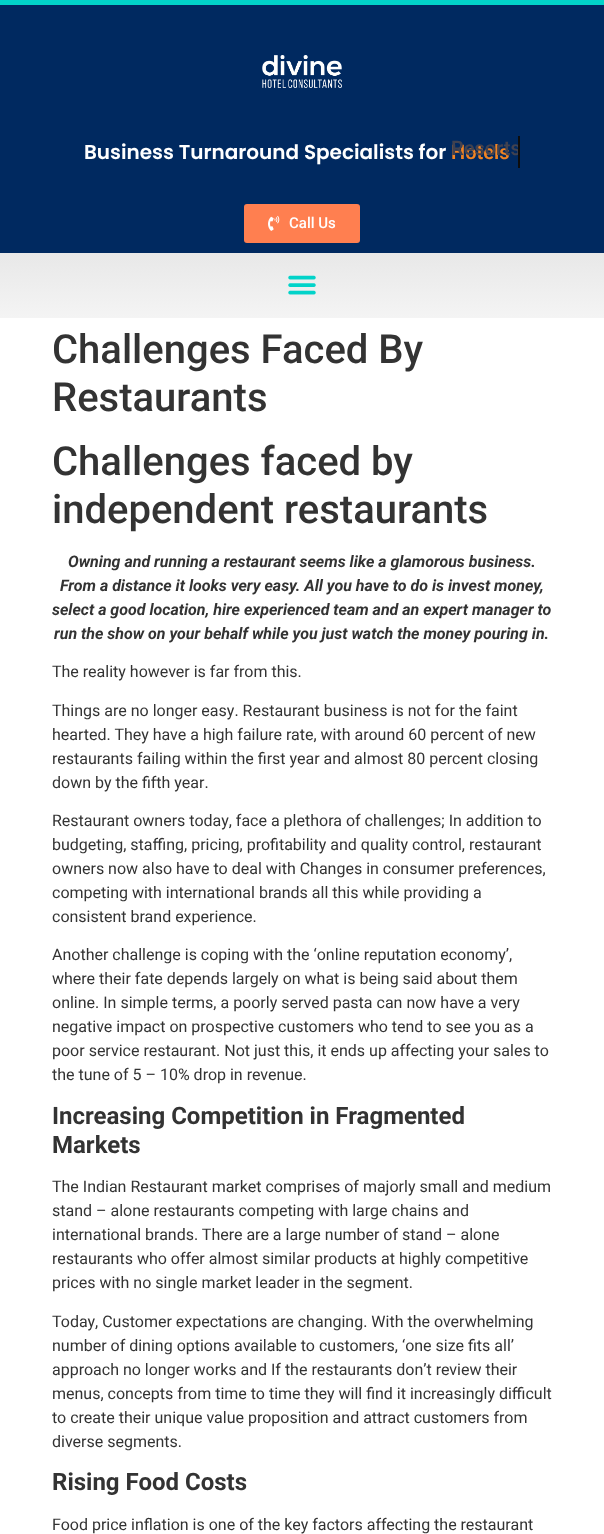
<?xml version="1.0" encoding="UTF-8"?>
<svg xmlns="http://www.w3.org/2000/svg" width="604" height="1534">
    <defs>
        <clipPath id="clip1"><rect x="451" y="136" width="69" height="32"/></clipPath>
        <linearGradient id="g1" gradientUnits="userSpaceOnUse" x1="302" y1="253" x2="302" y2="318"><stop offset="0" stop-color="#E8E8E8"/><stop offset="1" stop-color="#F4F4F4"/></linearGradient>
    </defs>
    <rect width="100%" height="100%" fill="#FFFFFF"/>
    <rect x="0" y="5" width="604" height="248" fill="#002960"/>
    <rect x="0" y="0" width="604" height="5" fill="#02D3C9"/>
    <image x="262" y="55" width="80" height="33" href="img_01.png"/>
    <text x="84" y="159" font-family="Poppins" font-size="20" font-weight="600" fill="#FFFFFF">Business Turnaround Specialists for</text>
    <text x="451" y="159" font-family="Roboto" font-size="20" font-weight="600" fill="#F18423">Hotels</text>
    <g clip-path="url(#clip1)">
        <text x="451" y="155" font-family="Roboto" font-size="20" font-weight="600" fill="#414250">Resorts</text>
    </g>
    <rect x="518" y="136" width="2" height="32" fill="#0D0D0D"/>
    <rect x="244" y="204" width="116" height="39" rx="3" fill="#FF7F50"/>
    <image x="268" y="215" width="12" height="16" href="img_02.png"/>
    <text x="289" y="228" font-family="Roboto" font-size="15" font-weight="500" fill="#FFFFFF">Call Us</text>
    <rect x="0" y="253" width="604" height="65" fill="url(#g1)"/>
    <image x="288" y="275" width="28" height="20" href="img_03.png"/>
    <text font-family="Roboto" font-size="40" font-weight="500" fill="#333333">
        <tspan x="52" y="363">Challenges Faced By</tspan>
        <tspan x="52" y="411">Restaurants</tspan>
        <tspan x="52" y="475">Challenges faced by</tspan>
        <tspan x="52" y="523">independent restaurants</tspan>
    </text>
    <text x="68" y="567" font-family="Roboto" font-size="16" font-weight="700" font-style="italic" fill="#333333">Owning and running a restaurant seems like a glamorous business.</text>
    <text x="60" y="591" font-family="Roboto" font-size="16" font-weight="700" font-style="italic" fill="#333333">From a distance it looks very easy. All you have to do is invest money,</text>
    <text x="52" y="615" font-family="Roboto" font-size="16" font-weight="700" font-style="italic" fill="#333333">select a good location, hire experienced team and an expert manager to</text>
    <text x="54" y="639" font-family="Roboto" font-size="16" font-weight="700" font-style="italic" fill="#333333">run the show on your behalf while you just watch the money pouring in.</text>
    <text x="52" y="677" font-family="Roboto" font-size="16" fill="#333333">The reality however is far from this.</text>
    <text font-family="Roboto" font-size="16" fill="#333333">
        <tspan x="52" y="716">Things are no longer easy. Restaurant business is not for the faint</tspan>
        <tspan x="52" y="740">hearted. They have a high failure rate, with around 60 percent of new</tspan>
        <tspan x="52" y="764">restaurants failing within the first year and almost 80 percent closing</tspan>
        <tspan x="52" y="788">down by the fifth year.</tspan>
    </text>
    <text font-family="Roboto" font-size="16" fill="#333333">
        <tspan x="52" y="826">Restaurant owners today, face a plethora of challenges; In addition to</tspan>
        <tspan x="52" y="850">budgeting, staffing, pricing, profitability and quality control, restaurant</tspan>
        <tspan x="52" y="874">owners now also have to deal with Changes in consumer preferences,</tspan>
        <tspan x="52" y="898">competing with international brands all this while providing a</tspan>
        <tspan x="52" y="922">consistent brand experience.</tspan>
    </text>
    <text font-family="Roboto" font-size="16" fill="#333333">
        <tspan x="52" y="960">Another challenge is coping with the ‘online reputation economy’,</tspan>
        <tspan x="52" y="984">where their fate depends largely on what is being said about them</tspan>
        <tspan x="52" y="1008">online. In simple terms, a poorly served pasta can now have a very</tspan>
        <tspan x="52" y="1032">negative impact on prospective customers who tend to see you as a</tspan>
        <tspan x="52" y="1056">poor service restaurant. Not just this, it ends up affecting your sales to</tspan>
        <tspan x="52" y="1080">the tune of 5 – 10% drop in revenue.</tspan>
    </text>
    <text font-family="Roboto" font-size="24" font-weight="700" fill="#333333">
        <tspan x="52" y="1124">Increasing Competition in Fragmented</tspan>
        <tspan x="52" y="1153">Markets</tspan>
    </text>
    <text font-family="Roboto" font-size="16" fill="#333333">
        <tspan x="52" y="1192">The Indian Restaurant market comprises of majorly small and medium</tspan>
        <tspan x="52" y="1216">stand – alone restaurants competing with large chains and</tspan>
        <tspan x="52" y="1240">international brands. There are a large number of stand – alone</tspan>
        <tspan x="52" y="1264">restaurants who offer almost similar products at highly competitive</tspan>
        <tspan x="52" y="1288">prices with no single market leader in the segment.</tspan>
    </text>
    <text font-family="Roboto" font-size="16" fill="#333333">
        <tspan x="52" y="1327">Today, Customer expectations are changing. With the overwhelming</tspan>
        <tspan x="52" y="1351">number of dining options available to customers, ‘one size fits all’</tspan>
        <tspan x="52" y="1375">approach no longer works and If the restaurants don’t review their</tspan>
        <tspan x="52" y="1399">menus, concepts from time to time they will find it increasingly difficult</tspan>
        <tspan x="52" y="1423">to create their unique value proposition and attract customers from</tspan>
        <tspan x="52" y="1447">diverse segments.</tspan>
    </text>
    <text x="52" y="1490" font-family="Roboto" font-size="24" font-weight="700" fill="#333333">Rising Food Costs</text>
    <text x="52" y="1530" font-family="Roboto" font-size="16" fill="#333333">Food price inflation is one of the key factors affecting the restaurant</text>
</svg>
